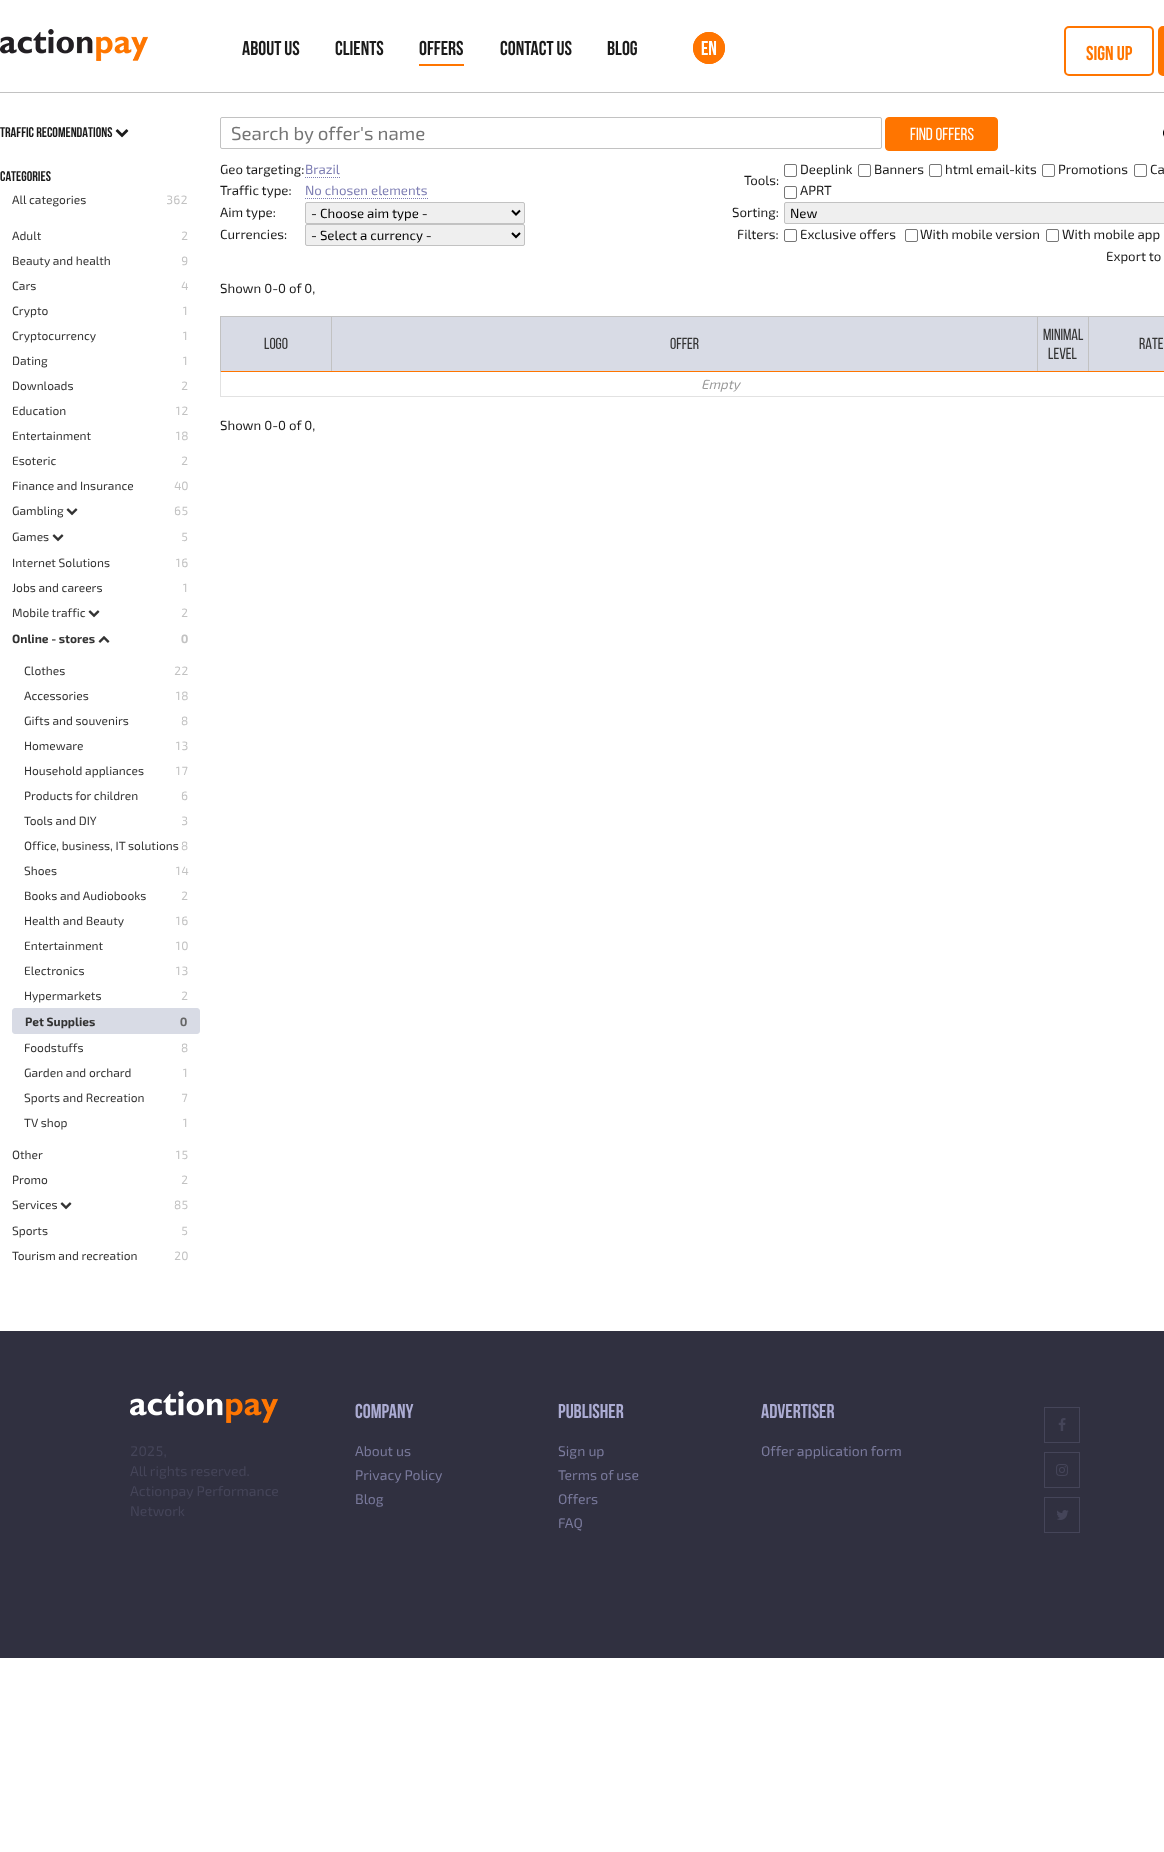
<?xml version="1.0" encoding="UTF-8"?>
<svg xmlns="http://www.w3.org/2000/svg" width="1164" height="1852">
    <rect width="100%" height="100%" fill="#FFFFFF"/>
    <rect x="0" y="92" width="1164" height="1" fill="#C2C2C2"/>
    <image x="0" y="29" width="148" height="32" href="img_01.png"/>
    <text x="242" y="55" font-family="Bebas Neue" font-size="20" font-weight="700" fill="#1B1B1B">ABOUT US</text>
    <text x="335" y="55" font-family="Bebas Neue" font-size="20" font-weight="700" fill="#1B1B1B">CLIENTS</text>
    <text x="419" y="55" font-family="Bebas Neue" font-size="20" font-weight="700" fill="#1B1B1B">OFFERS</text>
    <rect x="419" y="64" width="45" height="2" fill="#FF7500"/>
    <text x="500" y="55" font-family="Bebas Neue" font-size="20" font-weight="700" fill="#1B1B1B">CONTACT US</text>
    <text x="607" y="55" font-family="Bebas Neue" font-size="20" font-weight="700" fill="#1B1B1B">BLOG</text>
    <circle cx="709" cy="48" r="15" fill="none" stroke="#FF7500" stroke-width="2"/>
    <circle cx="709" cy="48" r="16" fill="#FF7500"/>
    <text x="701" y="55" font-family="Bebas Neue" font-size="20" font-weight="700" fill="#FFFFFF">EN</text>
    <rect x="1065" y="27" width="88" height="48" rx="4" fill="none" stroke="#FF7500" stroke-width="2"/>
    <text x="1086" y="60" font-family="Bebas Neue" font-size="20" font-weight="700" fill="#FF7500">SIGN UP</text>
    <rect x="1159" y="27" width="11" height="48" rx="4" fill="#FF7500" stroke="#FF7500" stroke-width="2"/>
    <text x="0" y="137" font-family="Bebas Neue" font-size="14" font-weight="700" fill="#1B1B1B">TRAFFIC RECOMENDATIONS</text>
    <image x="115" y="129" width="14" height="9" href="img_02.png"/>
    <text x="0" y="181" font-family="Bebas Neue" font-size="14" font-weight="700" fill="#1B1B1B">CATEGORIES</text>
    <text x="12" y="204" font-family="'Exo 2'" font-size="12" fill="#333333">All categories</text>
    <text x="166" y="204" font-family="'Exo 2'" font-size="12" fill="#C2C2C2">362</text>
    <text x="12" y="240" font-family="'Exo 2'" font-size="12" fill="#333333">Adult</text>
    <text x="181" y="240" font-family="'Exo 2'" font-size="12" fill="#C2C2C2">2</text>
    <text x="12" y="265" font-family="'Exo 2'" font-size="12" fill="#333333">Beauty and health</text>
    <text x="181" y="265" font-family="'Exo 2'" font-size="12" fill="#C2C2C2">9</text>
    <text x="12" y="290" font-family="'Exo 2'" font-size="12" fill="#333333">Cars</text>
    <text x="181" y="290" font-family="'Exo 2'" font-size="12" fill="#C2C2C2">4</text>
    <text x="12" y="315" font-family="'Exo 2'" font-size="12" fill="#333333">Crypto</text>
    <text x="181" y="315" font-family="'Exo 2'" font-size="12" fill="#C2C2C2">1</text>
    <text x="12" y="340" font-family="'Exo 2'" font-size="12" fill="#333333">Cryptocurrency</text>
    <text x="181" y="340" font-family="'Exo 2'" font-size="12" fill="#C2C2C2">1</text>
    <text x="12" y="365" font-family="'Exo 2'" font-size="12" fill="#333333">Dating</text>
    <text x="181" y="365" font-family="'Exo 2'" font-size="12" fill="#C2C2C2">1</text>
    <text x="12" y="390" font-family="'Exo 2'" font-size="12" fill="#333333">Downloads</text>
    <text x="181" y="390" font-family="'Exo 2'" font-size="12" fill="#C2C2C2">2</text>
    <text x="12" y="415" font-family="'Exo 2'" font-size="12" fill="#333333">Education</text>
    <text x="174" y="415" font-family="'Exo 2'" font-size="12" fill="#C2C2C2">12</text>
    <text x="12" y="440" font-family="'Exo 2'" font-size="12" fill="#333333">Entertainment</text>
    <text x="174" y="440" font-family="'Exo 2'" font-size="12" fill="#C2C2C2">18</text>
    <text x="12" y="465" font-family="'Exo 2'" font-size="12" fill="#333333">Esoteric</text>
    <text x="181" y="465" font-family="'Exo 2'" font-size="12" fill="#C2C2C2">2</text>
    <text x="12" y="490" font-family="'Exo 2'" font-size="12" fill="#333333">Finance and Insurance</text>
    <text x="174" y="490" font-family="'Exo 2'" font-size="12" fill="#C2C2C2">40</text>
    <text x="12" y="515" font-family="'Exo 2'" font-size="12" fill="#333333">Gambling</text>
    <image x="66" y="508" width="12" height="8" href="img_03.png"/>
    <text x="174" y="515" font-family="'Exo 2'" font-size="12" fill="#C2C2C2">65</text>
    <text x="12" y="541" font-family="'Exo 2'" font-size="12" fill="#333333">Games</text>
    <image x="52" y="534" width="12" height="8" href="img_03.png"/>
    <text x="181" y="541" font-family="'Exo 2'" font-size="12" fill="#C2C2C2">5</text>
    <text x="12" y="567" font-family="'Exo 2'" font-size="12" fill="#333333">Internet Solutions</text>
    <text x="174" y="567" font-family="'Exo 2'" font-size="12" fill="#C2C2C2">16</text>
    <text x="12" y="592" font-family="'Exo 2'" font-size="12" fill="#333333">Jobs and careers</text>
    <text x="181" y="592" font-family="'Exo 2'" font-size="12" fill="#C2C2C2">1</text>
    <text x="12" y="617" font-family="'Exo 2'" font-size="12" fill="#333333">Mobile traffic</text>
    <image x="88" y="610" width="12" height="8" href="img_03.png"/>
    <text x="181" y="617" font-family="'Exo 2'" font-size="12" fill="#C2C2C2">2</text>
    <text x="12" y="643" font-family="'Exo 2'" font-size="12" font-weight="700" fill="#333333">Online - stores</text>
    <image x="98" y="636" width="12" height="7" href="img_04.png"/>
    <text x="181" y="643" font-family="'Exo 2'" font-size="12" font-weight="700" fill="#C2C2C2">0</text>
    <text x="24" y="675" font-family="'Exo 2'" font-size="12" fill="#333333">Clothes</text>
    <text x="174" y="675" font-family="'Exo 2'" font-size="12" fill="#C2C2C2">22</text>
    <text x="24" y="700" font-family="'Exo 2'" font-size="12" fill="#333333">Accessories</text>
    <text x="174" y="700" font-family="'Exo 2'" font-size="12" fill="#C2C2C2">18</text>
    <text x="24" y="725" font-family="'Exo 2'" font-size="12" fill="#333333">Gifts and souvenirs</text>
    <text x="181" y="725" font-family="'Exo 2'" font-size="12" fill="#C2C2C2">8</text>
    <text x="24" y="750" font-family="'Exo 2'" font-size="12" fill="#333333">Homeware</text>
    <text x="174" y="750" font-family="'Exo 2'" font-size="12" fill="#C2C2C2">13</text>
    <text x="24" y="775" font-family="'Exo 2'" font-size="12" fill="#333333">Household appliances</text>
    <text x="174" y="775" font-family="'Exo 2'" font-size="12" fill="#C2C2C2">17</text>
    <text x="24" y="800" font-family="'Exo 2'" font-size="12" fill="#333333">Products for children</text>
    <text x="181" y="800" font-family="'Exo 2'" font-size="12" fill="#C2C2C2">6</text>
    <text x="24" y="825" font-family="'Exo 2'" font-size="12" fill="#333333">Tools and DIY</text>
    <text x="181" y="825" font-family="'Exo 2'" font-size="12" fill="#C2C2C2">3</text>
    <text x="24" y="850" font-family="'Exo 2'" font-size="12" fill="#333333">Office, business, IT solutions</text>
    <text x="181" y="850" font-family="'Exo 2'" font-size="12" fill="#C2C2C2">8</text>
    <text x="24" y="875" font-family="'Exo 2'" font-size="12" fill="#333333">Shoes</text>
    <text x="174" y="875" font-family="'Exo 2'" font-size="12" fill="#C2C2C2">14</text>
    <text x="24" y="900" font-family="'Exo 2'" font-size="12" fill="#333333">Books and Audiobooks</text>
    <text x="181" y="900" font-family="'Exo 2'" font-size="12" fill="#C2C2C2">2</text>
    <text x="24" y="925" font-family="'Exo 2'" font-size="12" fill="#333333">Health and Beauty</text>
    <text x="174" y="925" font-family="'Exo 2'" font-size="12" fill="#C2C2C2">16</text>
    <text x="24" y="950" font-family="'Exo 2'" font-size="12" fill="#333333">Entertainment</text>
    <text x="174" y="950" font-family="'Exo 2'" font-size="12" fill="#C2C2C2">10</text>
    <text x="24" y="975" font-family="'Exo 2'" font-size="12" fill="#333333">Electronics</text>
    <text x="174" y="975" font-family="'Exo 2'" font-size="12" fill="#C2C2C2">13</text>
    <text x="24" y="1000" font-family="'Exo 2'" font-size="12" fill="#333333">Hypermarkets</text>
    <text x="181" y="1000" font-family="'Exo 2'" font-size="12" fill="#C2C2C2">2</text>
    <rect x="12.5" y="1008.5" width="187" height="25" rx="2.5" fill="#D8DBE5" stroke="#D8DBE5"/>
    <text x="25" y="1026" font-family="'Exo 2'" font-size="12" font-weight="700" fill="#333333">Pet Supplies</text>
    <text x="180" y="1026" font-family="'Exo 2'" font-size="12" font-weight="700" fill="#666666">0</text>
    <text x="24" y="1052" font-family="'Exo 2'" font-size="12" fill="#333333">Foodstuffs</text>
    <text x="181" y="1052" font-family="'Exo 2'" font-size="12" fill="#C2C2C2">8</text>
    <text x="24" y="1077" font-family="'Exo 2'" font-size="12" fill="#333333">Garden and orchard</text>
    <text x="181" y="1077" font-family="'Exo 2'" font-size="12" fill="#C2C2C2">1</text>
    <text x="24" y="1102" font-family="'Exo 2'" font-size="12" fill="#333333">Sports and Recreation</text>
    <text x="181" y="1102" font-family="'Exo 2'" font-size="12" fill="#C2C2C2">7</text>
    <text x="24" y="1127" font-family="'Exo 2'" font-size="12" fill="#333333">TV shop</text>
    <text x="181" y="1127" font-family="'Exo 2'" font-size="12" fill="#C2C2C2">1</text>
    <text x="12" y="1159" font-family="'Exo 2'" font-size="12" fill="#333333">Other</text>
    <text x="174" y="1159" font-family="'Exo 2'" font-size="12" fill="#C2C2C2">15</text>
    <text x="12" y="1184" font-family="'Exo 2'" font-size="12" fill="#333333">Promo</text>
    <text x="181" y="1184" font-family="'Exo 2'" font-size="12" fill="#C2C2C2">2</text>
    <text x="12" y="1209" font-family="'Exo 2'" font-size="12" fill="#333333">Services</text>
    <image x="60" y="1202" width="12" height="8" href="img_03.png"/>
    <text x="174" y="1209" font-family="'Exo 2'" font-size="12" fill="#C2C2C2">85</text>
    <text x="12" y="1235" font-family="'Exo 2'" font-size="12" fill="#333333">Sports</text>
    <text x="181" y="1235" font-family="'Exo 2'" font-size="12" fill="#C2C2C2">5</text>
    <text x="12" y="1260" font-family="'Exo 2'" font-size="12" fill="#333333">Tourism and recreation</text>
    <text x="174" y="1260" font-family="'Exo 2'" font-size="12" fill="#C2C2C2">20</text>
    <rect x="220.5" y="117.5" width="661" height="31" rx="1.5" fill="none" stroke="#C2C2C2"/>
    <text x="231" y="140" font-family="'Exo 2'" font-size="18.75" fill="#757575">Search by offer's name</text>
    <rect x="885.5" y="117.5" width="112" height="33" rx="3.5" fill="#FF7500" stroke="#FF7500"/>
    <text x="910" y="140" font-family="Bebas Neue" font-size="17.5" fill="#FFFFFF">FIND OFFERS</text>
    <image x="1163" y="129" width="1" height="8" href="img_05.png"/>
    <text x="220" y="174" font-family="'Exo 2'" font-size="13.25" fill="#1B1B1B">Geo targeting:</text>
    <text x="305" y="174" font-family="'Exo 2'" font-size="13.25" fill="#7D7DB3">Brazil</text>
    <path d="M 305 177.5 H 340" fill="none" stroke="#7D7DB3" stroke-dasharray="1 1"/>
    <text x="220" y="195" font-family="'Exo 2'" font-size="13.25" fill="#1B1B1B">Traffic type:</text>
    <text x="305" y="195" font-family="'Exo 2'" font-size="13.25" fill="#7D7DB3">No chosen elements</text>
    <path d="M 305 198.5 H 428" fill="none" stroke="#7D7DB3" stroke-dasharray="1 1"/>
    <text x="220" y="217" font-family="'Exo 2'" font-size="13.25" fill="#1B1B1B">Aim type:</text>
    <rect x="305.5" y="202.5" width="219" height="21" rx="1.5" fill="#EFEFEF" stroke="#C2C2C2"/>
    <path d="M 512 210.5 L 516 214.5 L 520 210.5" fill="none" stroke="#000000" stroke-width="2"/>
    <text x="311" y="218" font-family="'Exo 2'" font-size="13.25" fill="#000000">- Choose aim type -</text>
    <text x="220" y="239" font-family="'Exo 2'" font-size="13.25" fill="#1B1B1B">Currencies:</text>
    <rect x="305.5" y="224.5" width="219" height="21" rx="1.5" fill="#EFEFEF" stroke="#C2C2C2"/>
    <path d="M 512 233 L 516 237 L 520 233" fill="none" stroke="#000000" stroke-width="2"/>
    <text x="311" y="240" font-family="'Exo 2'" font-size="13.25" fill="#000000">- Select a currency -</text>
    <text x="744" y="185" font-family="'Exo 2'" font-size="13.25" fill="#1B1B1B">Tools:</text>
    <rect x="784.5" y="164.5" width="12" height="12" rx="1.5" fill="none" stroke="#767676"/>
    <text x="800" y="174" font-family="'Exo 2'" font-size="13.25" fill="#1B1B1B">Deeplink</text>
    <rect x="858.5" y="164.5" width="12" height="12" rx="1.5" fill="none" stroke="#767676"/>
    <text x="874" y="174" font-family="'Exo 2'" font-size="13.25" fill="#1B1B1B">Banners</text>
    <rect x="929.5" y="164.5" width="12" height="12" rx="1.5" fill="none" stroke="#767676"/>
    <text x="945" y="174" font-family="'Exo 2'" font-size="13.25" fill="#1B1B1B">html email-kits</text>
    <rect x="1042.5" y="164.5" width="12" height="12" rx="1.5" fill="none" stroke="#767676"/>
    <text x="1058" y="174" font-family="'Exo 2'" font-size="13.25" fill="#1B1B1B">Promotions</text>
    <rect x="1134.5" y="164.5" width="12" height="12" rx="1.5" fill="none" stroke="#767676"/>
    <text x="1150" y="174" font-family="'Exo 2'" font-size="13.25" fill="#1B1B1B">Ca</text>
    <rect x="784.5" y="186.5" width="12" height="12" rx="1.5" fill="none" stroke="#767676"/>
    <text x="800" y="195" font-family="'Exo 2'" font-size="13.25" fill="#1B1B1B">APRT</text>
    <text x="732" y="217" font-family="'Exo 2'" font-size="13.25" fill="#1B1B1B">Sorting:</text>
    <rect x="784.5" y="202.5" width="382" height="21" rx="1.5" fill="#EFEFEF" stroke="#C2C2C2"/>
    <text x="790" y="218" font-family="'Exo 2'" font-size="13.25" fill="#000000">New</text>
    <text x="737" y="239" font-family="'Exo 2'" font-size="13.25" fill="#1B1B1B">Filters:</text>
    <rect x="784.5" y="229.5" width="12" height="12" rx="1.5" fill="none" stroke="#767676"/>
    <text x="800" y="239" font-family="'Exo 2'" font-size="13.25" fill="#1B1B1B">Exclusive offers</text>
    <rect x="905.5" y="229.5" width="12" height="12" rx="1.5" fill="none" stroke="#767676"/>
    <text x="920" y="239" font-family="'Exo 2'" font-size="13.25" fill="#1B1B1B">With mobile version</text>
    <rect x="1046.5" y="229.5" width="12" height="12" rx="1.5" fill="none" stroke="#767676"/>
    <text x="1062" y="239" font-family="'Exo 2'" font-size="13.25" fill="#1B1B1B">With mobile app</text>
    <text x="1106" y="261" font-family="'Exo 2'" font-size="13.25" fill="#1B1B1B">Export to</text>
    <text x="220" y="293" font-family="'Exo 2'" font-size="13.25" fill="#1B1B1B">Shown 0-0 of 0,</text>
    <rect x="220" y="316" width="944" height="1" fill="#C2C2C2"/>
    <rect x="221" y="317" width="110" height="54" fill="#D8DBE5"/>
    <rect x="1088" y="371" width="76" height="1" fill="#FF7500"/>
    <rect x="1088" y="316" width="1" height="56" fill="#C2C2C2"/>
    <rect x="1037" y="371" width="52" height="1" fill="#FF7500"/>
    <rect x="1037" y="316" width="1" height="56" fill="#C2C2C2"/>
    <rect x="331" y="371" width="707" height="1" fill="#FF7500"/>
    <rect x="331" y="316" width="1" height="56" fill="#C2C2C2"/>
    <rect x="220" y="396" width="944" height="1" fill="#E2E2E2"/>
    <rect x="220" y="371" width="1" height="26" fill="#E2E2E2"/>
    <rect x="220" y="371" width="112" height="1" fill="#FF7500"/>
    <rect x="220" y="316" width="1" height="56" fill="#C2C2C2"/>
    <text x="264" y="349" font-family="Bebas Neue" font-size="16" fill="#333333">LOGO</text>
    <rect x="332" y="317" width="705" height="54" fill="#D8DBE5"/>
    <text x="670" y="349" font-family="Bebas Neue" font-size="16" fill="#333333">OFFER</text>
    <rect x="1038" y="317" width="50" height="54" fill="#D8DBE5"/>
    <text x="1043" y="340" font-family="Bebas Neue" font-size="16" fill="#333333">MINIMAL</text>
    <text x="1048" y="359" font-family="Bebas Neue" font-size="16" fill="#333333">LEVEL</text>
    <rect x="1089" y="317" width="75" height="54" fill="#D8DBE5"/>
    <text x="1139" y="349" font-family="Bebas Neue" font-size="16" fill="#333333">RATE</text>
    <text x="701" y="389" font-family="'Exo 2'" font-size="13.25" font-style="italic" fill="#999999">Empty</text>
    <text x="220" y="430" font-family="'Exo 2'" font-size="13.25" fill="#1B1B1B">Shown 0-0 of 0,</text>
    <rect x="0" y="1331" width="1164" height="327" fill="#303040"/>
    <image x="130" y="1391" width="148" height="32" href="img_06.png"/>
    <text font-family="'Exo 2'" font-size="14" fill="#454559">
        <tspan x="130" y="1456">2025,</tspan>
        <tspan x="130" y="1476">All rights reserved.</tspan>
        <tspan x="130" y="1496">Actionpay Performance</tspan>
        <tspan x="130" y="1516">Network</tspan>
    </text>
    <text x="355" y="1418" font-family="Bebas Neue" font-size="20" font-weight="700" fill="#ACACD3">COMPANY</text>
    <text font-family="'Exo 2'" font-size="14" fill="#7A7A9C">
        <tspan x="355" y="1456">About us</tspan>
        <tspan x="355" y="1480">Privacy Policy</tspan>
        <tspan x="355" y="1504">Blog</tspan>
    </text>
    <text x="558" y="1418" font-family="Bebas Neue" font-size="20" font-weight="700" fill="#ACACD3">PUBLISHER</text>
    <text font-family="'Exo 2'" font-size="14" fill="#7A7A9C">
        <tspan x="558" y="1456">Sign up</tspan>
        <tspan x="558" y="1480">Terms of use</tspan>
        <tspan x="558" y="1504">Offers</tspan>
        <tspan x="558" y="1528">FAQ</tspan>
    </text>
    <text x="761" y="1418" font-family="Bebas Neue" font-size="20" font-weight="700" fill="#ACACD3">ADVERTISER</text>
    <text x="761" y="1456" font-family="'Exo 2'" font-size="14" fill="#7A7A9C">Offer application form</text>
    <rect x="1044.5" y="1407.5" width="35" height="35" fill="none" stroke="#454559"/>
    <image x="1058" y="1418" width="8" height="13" href="img_07.png"/>
    <rect x="1044.5" y="1452.5" width="35" height="35" fill="none" stroke="#454559"/>
    <image x="1056" y="1464" width="12" height="12" href="img_08.png"/>
    <rect x="1044.5" y="1497.5" width="35" height="35" fill="none" stroke="#454559"/>
    <image x="1057" y="1510" width="12" height="10" href="img_09.png"/>
</svg>
